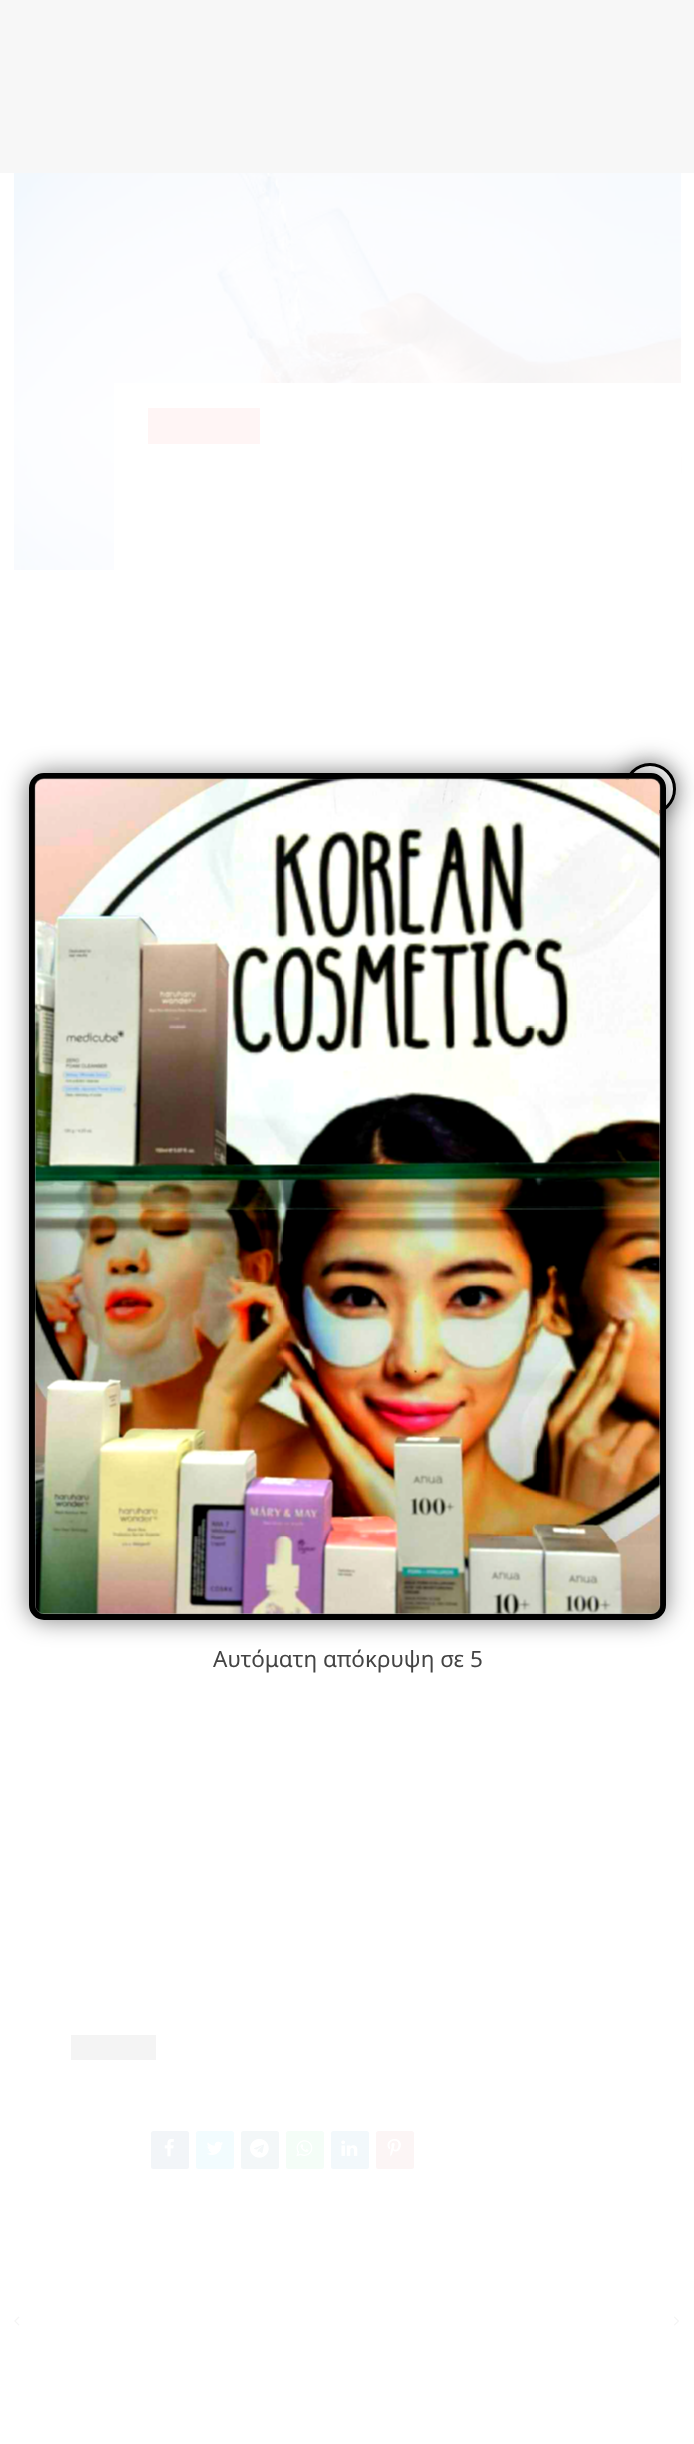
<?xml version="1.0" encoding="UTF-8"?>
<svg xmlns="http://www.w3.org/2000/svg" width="694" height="2444">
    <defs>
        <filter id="blur1" x="-50%" y="-200%" width="200%" height="500%"><feGaussianBlur stdDeviation="12.5"/></filter>
    </defs>
    <rect width="100%" height="100%" fill="#FFFFFF"/>
    <rect x="0" y="0" width="694" height="173" fill="#F7F7F7"/>
    <image x="13" y="173" width="669" height="397" href="img_01.png"/>
    <rect x="114" y="383" width="567" height="187" fill="#FFFFFF"/>
    <rect x="148" y="408" width="112" height="36" fill="#FFF5F5"/>
    <rect x="71" y="2035" width="85" height="25" fill="#F4F4F4"/>
    <rect x="151" y="2131" width="38" height="38" rx="2.5" fill="#F2F5F8"/>
    <image x="164" y="2138" width="10" height="19" href="img_02.png"/>
    <rect x="196" y="2131" width="38" height="38" rx="2.5" fill="#F2FCFE"/>
    <image x="206" y="2141" width="17" height="14" href="img_03.png"/>
    <rect x="241" y="2131" width="38" height="38" rx="2.5" fill="#F3F7F8"/>
    <image x="250" y="2138" width="19" height="20" href="img_04.png"/>
    <rect x="286" y="2131" width="38" height="38" rx="2.5" fill="#F4FDF7"/>
    <image x="296" y="2140" width="17" height="17" href="img_05.png"/>
    <rect x="331" y="2131" width="38" height="38" rx="2.5" fill="#F2F8FB"/>
    <image x="341" y="2140" width="17" height="16" href="img_06.png"/>
    <rect x="376" y="2131" width="38" height="38" rx="2.5" fill="#FCF5F5"/>
    <image x="387" y="2138" width="14" height="19" href="img_07.png"/>
    <image x="14" y="2316" width="6" height="10" href="img_08.png"/>
    <image x="673" y="2316" width="7" height="10" href="img_09.png"/>
    <rect x="624" y="763" width="52" height="52" rx="26" fill="#000000" fill-opacity="0.5" filter="url(#blur1)"/>
    <circle cx="650" cy="789" r="24.5" fill="#FFFFFF" stroke="#000000" stroke-width="3"/>
    <rect x="29" y="773" width="637" height="847" rx="15" fill="#000000" fill-opacity="0.5" filter="url(#blur1)"/>
    <rect x="32" y="776" width="631" height="841" rx="12" fill="none" stroke="#000000" stroke-width="6"/>
    <image x="34" y="778" width="627" height="837" href="img_10.png"/>
    <text x="213" y="1667" font-family="Noto Sans" font-size="22.5" fill="#444444">Αυτόματη απόκρυψη σε 5</text>
</svg>
